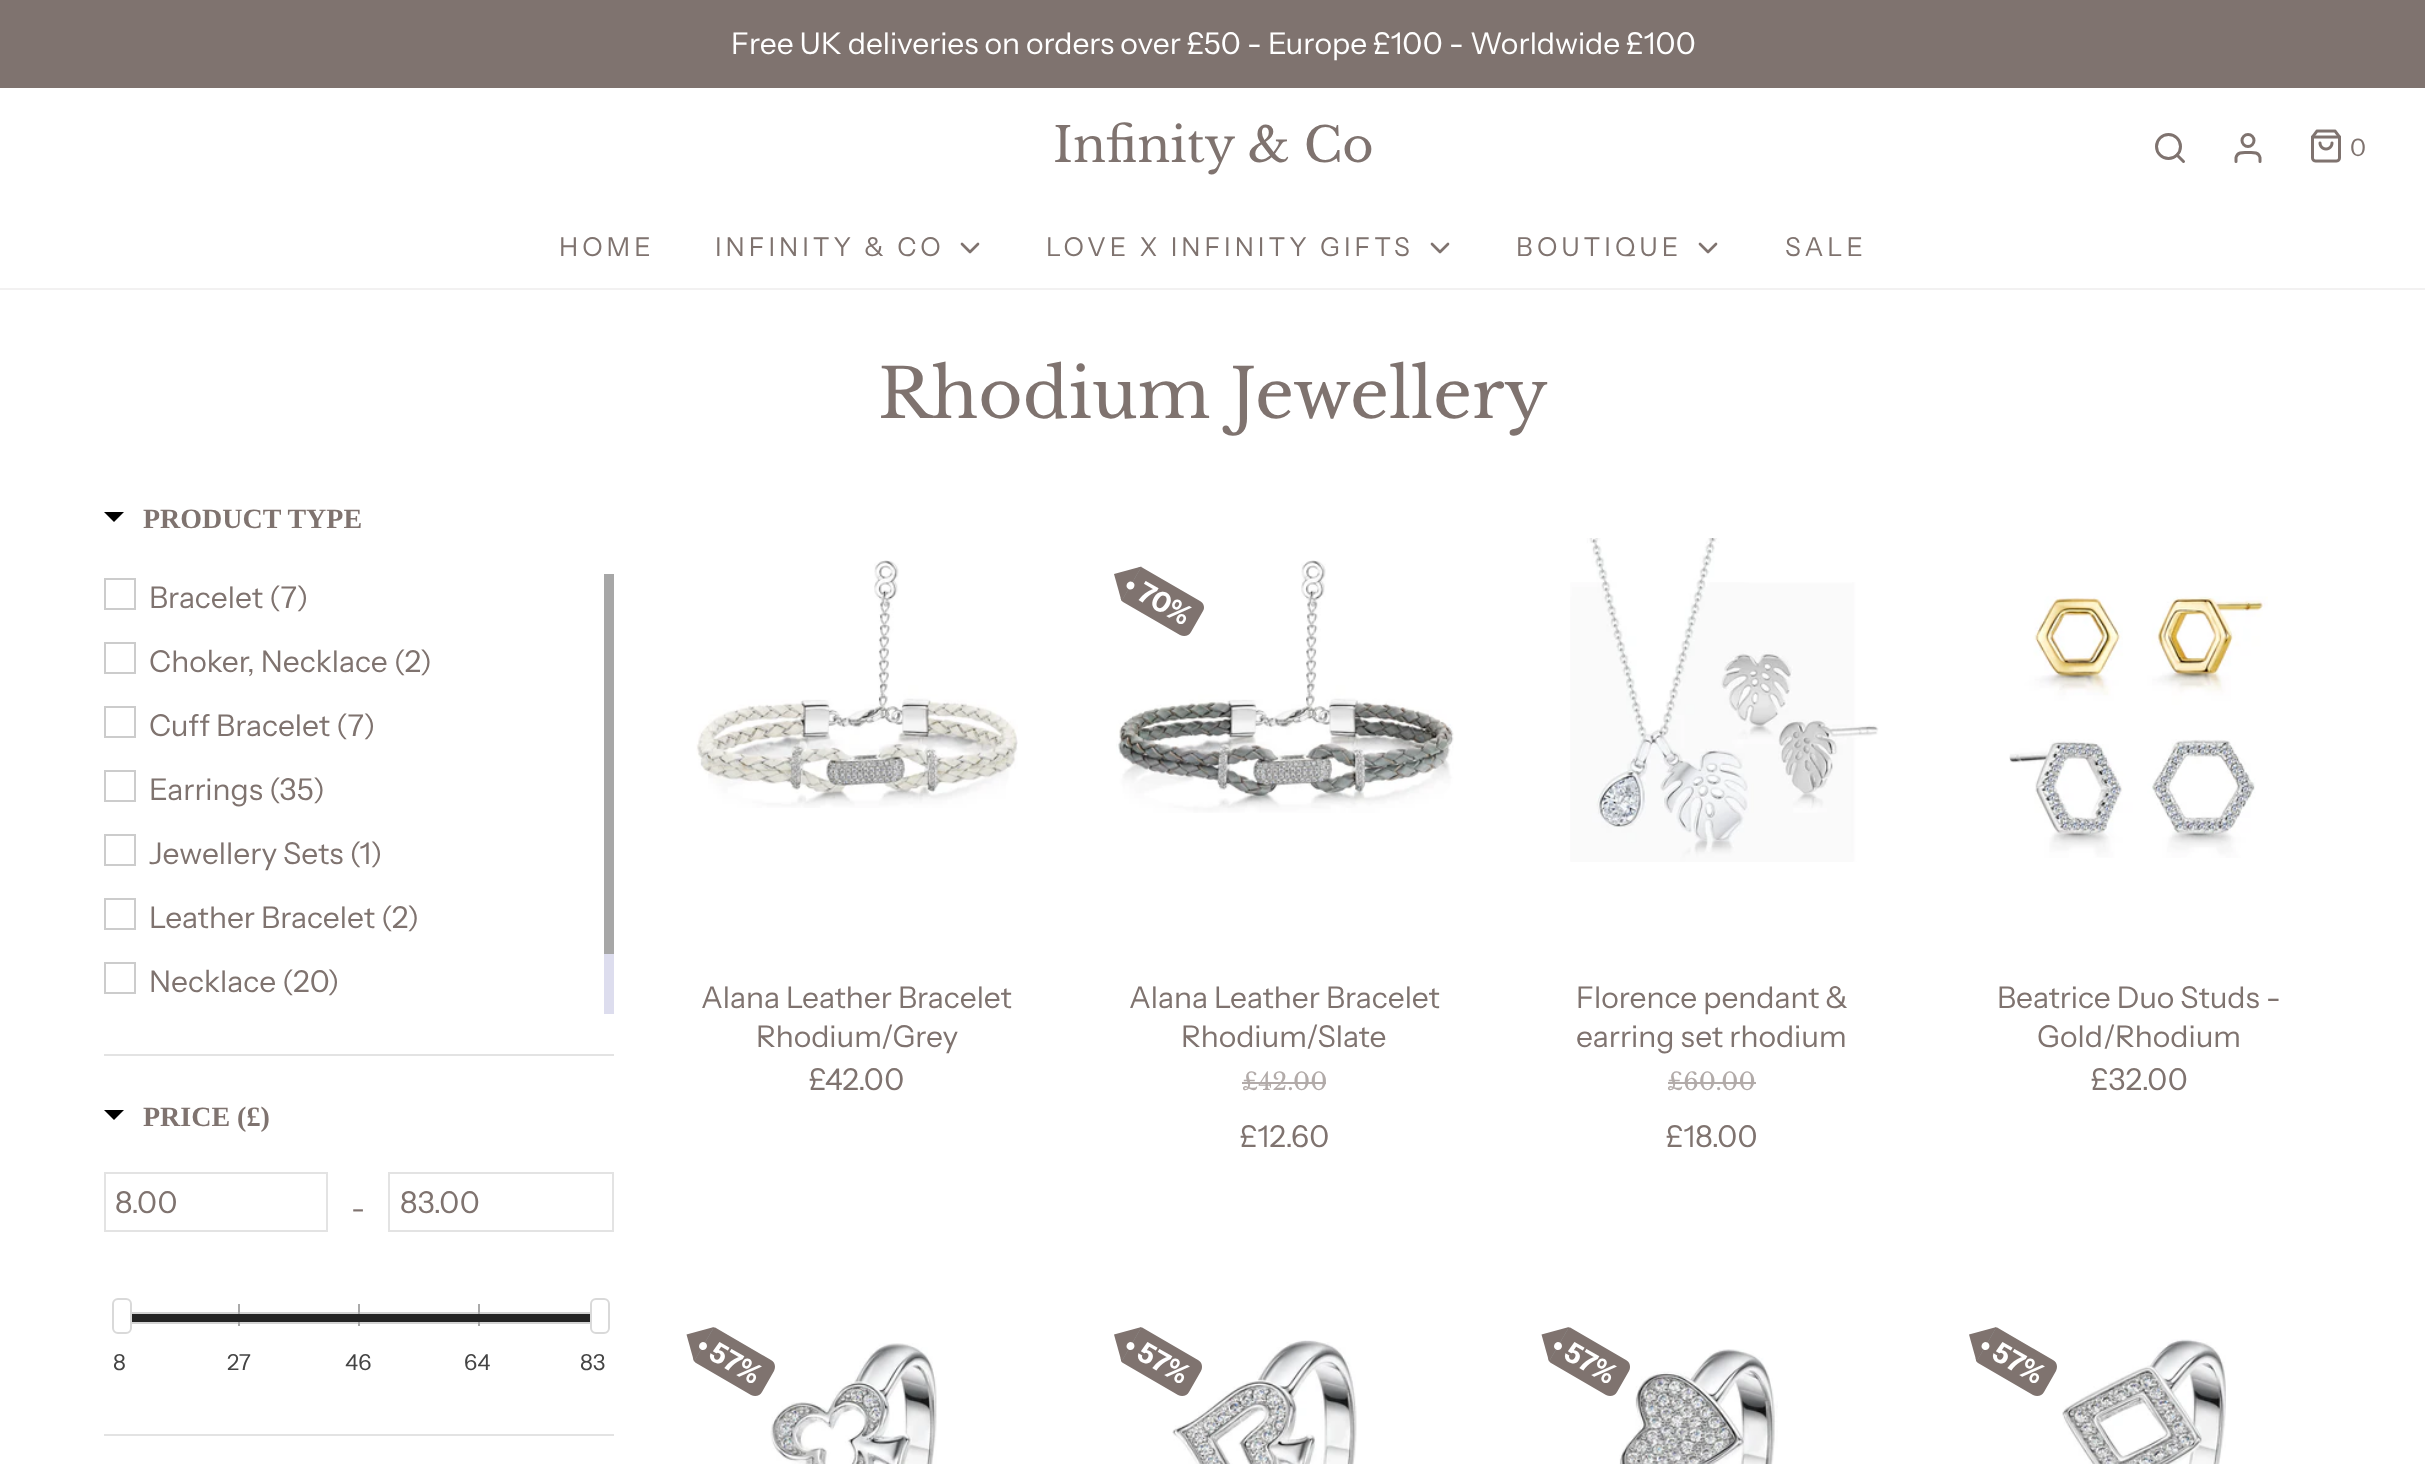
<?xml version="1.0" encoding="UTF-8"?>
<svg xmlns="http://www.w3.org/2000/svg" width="2425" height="1464">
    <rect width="100%" height="100%" fill="#FFFFFF"/>
    <rect x="0" y="0" width="2425" height="88" fill="#7F736F"/>
    <text x="731" y="54" font-family="Instrument Sans" font-size="30" fill="#FFFFFF">Free UK deliveries on orders over £50 - Europe £100 - Worldwide £100</text>
    <rect x="0" y="288" width="2425" height="2" fill="#F2F1F1"/>
    <text x="1053" y="162" font-family="Libre Baskerville" font-size="48" fill="#7F736F">Infinity &amp; Co</text>
    <circle cx="2168.5" cy="146.5" r="12" fill="none" stroke="#7F736F" stroke-width="3"/>
    <path d="M 2183.5 161.5 L 2177 155" fill="none" stroke="#7F736F" stroke-width="3" stroke-linecap="round" stroke-linejoin="round"/>
    <path d="M 2260 161.5 V 157.5 C 2258.5 151.5 2252.5 152.5 2248 152.5 C 2243.5 152.5 2237.5 151.5 2236 157.5 V 161.5" fill="none" stroke="#7F736F" stroke-width="3" stroke-linecap="round" stroke-linejoin="round"/>
    <circle cx="2248" cy="140.5" r="6" fill="none" stroke="#7F736F" stroke-width="3"/>
    <image x="2311" y="129" width="30" height="34" href="img_01.png"/>
    <text x="2350" y="156" font-family="Instrument Sans" font-size="24" fill="#7F736F">0</text>
    <text x="559" y="256" font-family="Instrument Sans" font-size="26" letter-spacing="4" fill="#7F736F">HOME</text>
    <text x="715" y="256" font-family="Instrument Sans" font-size="26" letter-spacing="4" fill="#7F736F">INFINITY &amp; CO</text>
    <path d="M 962 244 L 970 252 L 978 244" fill="none" stroke="#7F736F" stroke-width="2.7" stroke-linecap="round" stroke-linejoin="round"/>
    <text x="1046" y="256" font-family="Instrument Sans" font-size="26" letter-spacing="4" fill="#7F736F">LOVE X INFINITY GIFTS</text>
    <path d="M 1432 244 L 1440 252 L 1448 244" fill="none" stroke="#7F736F" stroke-width="2.7" stroke-linecap="round" stroke-linejoin="round"/>
    <text x="1516" y="256" font-family="Instrument Sans" font-size="26" letter-spacing="4" fill="#7F736F">BOUTIQUE</text>
    <path d="M 1700 244 L 1708 252 L 1716 244" fill="none" stroke="#7F736F" stroke-width="2.7" stroke-linecap="round" stroke-linejoin="round"/>
    <text x="1785" y="256" font-family="Instrument Sans" font-size="26" letter-spacing="4" fill="#7F736F">SALE</text>
    <text x="878" y="418" font-family="Libre Baskerville" font-size="68" fill="#7F736F">Rhodium Jewellery</text>
    <rect x="104" y="1054" width="510" height="2" fill="#E3E3E3"/>
    <path d="M 104 512 H 124 L 114 522 Z" fill="#000000"/>
    <text x="143" y="528" font-family="Liberation Serif" font-size="28" font-weight="700" fill="#7F736F">PRODUCT TYPE</text>
    <rect x="105" y="579" width="30" height="30" fill="none" stroke="#CCCCCC" stroke-width="2"/>
    <text x="149" y="608" font-family="Instrument Sans" font-size="30" fill="#7F736F">Bracelet (7)</text>
    <rect x="105" y="643" width="30" height="30" fill="none" stroke="#CCCCCC" stroke-width="2"/>
    <text x="149" y="672" font-family="Instrument Sans" font-size="30" fill="#7F736F">Choker, Necklace (2)</text>
    <rect x="105" y="707" width="30" height="30" fill="none" stroke="#CCCCCC" stroke-width="2"/>
    <text x="149" y="736" font-family="Instrument Sans" font-size="30" fill="#7F736F">Cuff Bracelet (7)</text>
    <rect x="105" y="771" width="30" height="30" fill="none" stroke="#CCCCCC" stroke-width="2"/>
    <text x="149" y="800" font-family="Instrument Sans" font-size="30" fill="#7F736F">Earrings (35)</text>
    <rect x="105" y="835" width="30" height="30" fill="none" stroke="#CCCCCC" stroke-width="2"/>
    <text x="149" y="864" font-family="Instrument Sans" font-size="30" fill="#7F736F">Jewellery Sets (1)</text>
    <rect x="105" y="899" width="30" height="30" fill="none" stroke="#CCCCCC" stroke-width="2"/>
    <text x="149" y="928" font-family="Instrument Sans" font-size="30" fill="#7F736F">Leather Bracelet (2)</text>
    <rect x="105" y="963" width="30" height="30" fill="none" stroke="#CCCCCC" stroke-width="2"/>
    <text x="149" y="992" font-family="Instrument Sans" font-size="30" fill="#7F736F">Necklace (20)</text>
    <rect x="604" y="954" width="10" height="60" fill="#DDDDEE"/>
    <rect x="604" y="574" width="10" height="380" fill="#A7A7A7"/>
    <rect x="104" y="1434" width="510" height="2" fill="#E3E3E3"/>
    <path d="M 104 1110 H 124 L 114 1120 Z" fill="#000000"/>
    <text x="143" y="1126" font-family="Liberation Serif" font-size="28" font-weight="700" fill="#7F736F">PRICE (£)</text>
    <rect x="105" y="1173" width="222" height="58" fill="none" stroke="#E3E3E3" stroke-width="2"/>
    <text x="115" y="1213" font-family="Instrument Sans" font-size="30" fill="#7F736F">8.00</text>
    <text x="351" y="1218" font-family="Instrument Sans" font-size="28" fill="#7F736F">-</text>
    <rect x="389" y="1173" width="224" height="58" fill="none" stroke="#E3E3E3" stroke-width="2"/>
    <text x="400" y="1213" font-family="Instrument Sans" font-size="30" fill="#7F736F">83.00</text>
    <rect x="119" y="1313" width="480" height="10" fill="none" stroke="#D3D3D3" stroke-width="2"/>
    <rect x="113" y="1299" width="18" height="34" rx="5" fill="#FFFFFF" stroke="#D9D9D9" stroke-width="2"/>
    <rect x="238" y="1304" width="2" height="22" fill="#AAAAAA"/>
    <rect x="358" y="1304" width="2" height="22" fill="#AAAAAA"/>
    <rect x="478" y="1304" width="2" height="22" fill="#AAAAAA"/>
    <rect x="132" y="1314" width="466" height="8" fill="#242424"/>
    <rect x="591" y="1299" width="18" height="34" rx="5" fill="#FFFFFF" stroke="#D9D9D9" stroke-width="2"/>
    <text x="113" y="1370" font-family="Instrument Sans" font-size="22" fill="#444444">8</text>
    <text x="227" y="1370" font-family="Instrument Sans" font-size="22" fill="#444444">27</text>
    <text x="345" y="1370" font-family="Instrument Sans" font-size="22" fill="#444444">46</text>
    <text x="464" y="1370" font-family="Instrument Sans" font-size="22" fill="#444444">64</text>
    <text x="580" y="1370" font-family="Instrument Sans" font-size="22" fill="#444444">83</text>
    <image x="696" y="560" width="322" height="248" href="img_02.png"/>
    <text x="701" y="1008" font-family="Instrument Sans" font-size="30" fill="#7F736F">Alana Leather Bracelet</text>
    <text x="756" y="1047" font-family="Instrument Sans" font-size="30" fill="#7F736F">Rhodium/Grey</text>
    <text x="809" y="1090" font-family="Instrument Sans" font-size="30" fill="#7F736F">£42.00</text>
    <image x="1116" y="560" width="338" height="253" href="img_03.png"/>
    <path d="M 1143 568 L 1200 601 C 1204 603 1205 608 1203 611 L 1191 632 C 1189 636 1184 637 1180 635 L 1123 602 C 1121 601 1121 599 1122 597 L 1138 569 C 1139 567 1141 566 1143 568 Z" fill="#7F736F"/>
    <path d="M 1138.5 567.5 L 1140.5 568.5 L 1122.5 599.5 L 1120.5 598.5 Z" fill="#979797"/>
    <text x="1135" y="598" transform="rotate(30 1135 598)" font-family="Instrument Sans" font-size="28" font-weight="700" fill="#FFFFFF">70%</text>
    <path d="M 1141.5 566.5 L 1121.5 601 L 1114 574 Z" fill="#7F736F"/>
    <path d="M 1132.5 582 C 1137 584.5 1133 591.5 1128.5 589 C 1124 586.5 1128 579.5 1132.5 582 Z" fill="#FFFFFF"/>
    <text x="1129" y="1008" font-family="Instrument Sans" font-size="30" fill="#7F736F">Alana Leather Bracelet</text>
    <text x="1181" y="1047" font-family="Instrument Sans" font-size="30" fill="#7F736F">Rhodium/Slate</text>
    <text x="1242" y="1090" font-family="Libre Baskerville" font-size="24" fill="#B2ABA9">£42.00</text>
    <rect x="1242" y="1082" width="84" height="2" fill="#B2ABA9"/>
    <text x="1240" y="1147" font-family="Instrument Sans" font-size="30" fill="#7F736F">£12.60</text>
    <image x="1570" y="538" width="309" height="324" href="img_04.png"/>
    <text font-family="Instrument Sans" font-size="30" fill="#7F736F">
        <tspan x="1576" y="1008">Florence pendant &amp;</tspan>
        <tspan x="1576" y="1047">earring set rhodium</tspan>
    </text>
    <text x="1667" y="1090" font-family="Libre Baskerville" font-size="24" fill="#B2ABA9">£60.00</text>
    <rect x="1668" y="1082" width="88" height="2" fill="#B2ABA9"/>
    <text x="1666" y="1147" font-family="Instrument Sans" font-size="30" fill="#7F736F">£18.00</text>
    <image x="2009" y="596" width="259" height="262" href="img_05.png"/>
    <text x="1997" y="1008" font-family="Instrument Sans" font-size="30" fill="#7F736F">Beatrice Duo Studs -</text>
    <text x="2037" y="1047" font-family="Instrument Sans" font-size="30" fill="#7F736F">Gold/Rhodium</text>
    <text x="2091" y="1090" font-family="Instrument Sans" font-size="30" fill="#7F736F">£32.00</text>
    <image x="770" y="1343" width="167" height="121" href="img_06.png"/>
    <path d="M 716 1328 L 771 1360 C 775 1362 776 1367 774 1371 L 762 1392 C 760 1396 755 1397 751 1395 L 696 1363 C 694 1362 693 1359 694 1357 L 710 1330 C 711 1328 714 1327 716 1328 Z" fill="#7F736F"/>
    <path d="M 711 1328 L 713 1329 L 695 1360 L 693 1359 Z" fill="#979797"/>
    <text x="707" y="1358" transform="rotate(30 707 1358)" font-family="Instrument Sans" font-size="28" font-weight="700" fill="#FFFFFF">57%</text>
    <path d="M 714 1327 L 694 1361.5 L 686.5 1334.5 Z" fill="#7F736F"/>
    <path d="M 705 1342.5 C 709.5 1345.5 705.5 1352 701 1349.5 C 696.5 1347 700.5 1340 705 1342.5 Z" fill="#FFFFFF"/>
    <image x="1172" y="1340" width="185" height="124" href="img_07.png"/>
    <path d="M 1143 1328 L 1198 1360 C 1202 1362 1203 1367 1201 1371 L 1189 1392 C 1187 1396 1182 1397 1178 1395 L 1123 1363 C 1121 1362 1120 1359 1122 1357 L 1138 1330 C 1139 1328 1141 1327 1143 1328 Z" fill="#7F736F"/>
    <path d="M 1138.5 1328 L 1140.5 1329 L 1122.5 1360 L 1120.5 1359 Z" fill="#979797"/>
    <text x="1135" y="1358" transform="rotate(30 1135 1358)" font-family="Instrument Sans" font-size="28" font-weight="700" fill="#FFFFFF">57%</text>
    <path d="M 1141.5 1327 L 1121.5 1361.5 L 1114 1334.5 Z" fill="#7F736F"/>
    <path d="M 1132.5 1342.5 C 1137 1345.5 1133 1352 1128.5 1349.5 C 1124 1347 1128 1340 1132.5 1342.5 Z" fill="#FFFFFF"/>
    <image x="1619" y="1349" width="159" height="115" href="img_08.png"/>
    <path d="M 1571 1328 L 1626 1360 C 1630 1362 1631 1367 1629 1371 L 1617 1392 C 1615 1396 1610 1397 1606 1395 L 1551 1363 C 1549 1362 1548 1359 1549 1357 L 1565 1330 C 1566 1328 1569 1327 1571 1328 Z" fill="#7F736F"/>
    <path d="M 1566 1328 L 1568 1329 L 1550 1360 L 1548 1359 Z" fill="#979797"/>
    <text x="1562" y="1358" transform="rotate(30 1562 1358)" font-family="Instrument Sans" font-size="28" font-weight="700" fill="#FFFFFF">57%</text>
    <path d="M 1569 1327 L 1549 1361.5 L 1541.5 1334.5 Z" fill="#7F736F"/>
    <path d="M 1560 1342.5 C 1564.5 1345.5 1560.5 1352 1556 1349.5 C 1551.5 1347 1555.5 1340 1560 1342.5 Z" fill="#FFFFFF"/>
    <path d="M 1998 1328 L 2053 1360 C 2057 1362 2058 1367 2056 1371 L 2044 1392 C 2042 1396 2037 1397 2033 1395 L 1978 1363 C 1976 1362 1975 1359 1977 1357 L 1993 1330 C 1994 1328 1996 1327 1998 1328 Z" fill="#7F736F"/>
    <path d="M 1993.5 1328 L 1995.5 1329 L 1977.5 1360 L 1975.5 1359 Z" fill="#979797"/>
    <text x="1990" y="1358" transform="rotate(30 1990 1358)" font-family="Instrument Sans" font-size="28" font-weight="700" fill="#FFFFFF">57%</text>
    <path d="M 1996.5 1327 L 1976.5 1361.5 L 1969 1334.5 Z" fill="#7F736F"/>
    <path d="M 1987.5 1342.5 C 1992 1345.5 1988 1352 1983.5 1349.5 C 1979 1347 1983 1340 1987.5 1342.5 Z" fill="#FFFFFF"/>
    <image x="2062" y="1339" width="164" height="125" href="img_09.png"/>
</svg>
